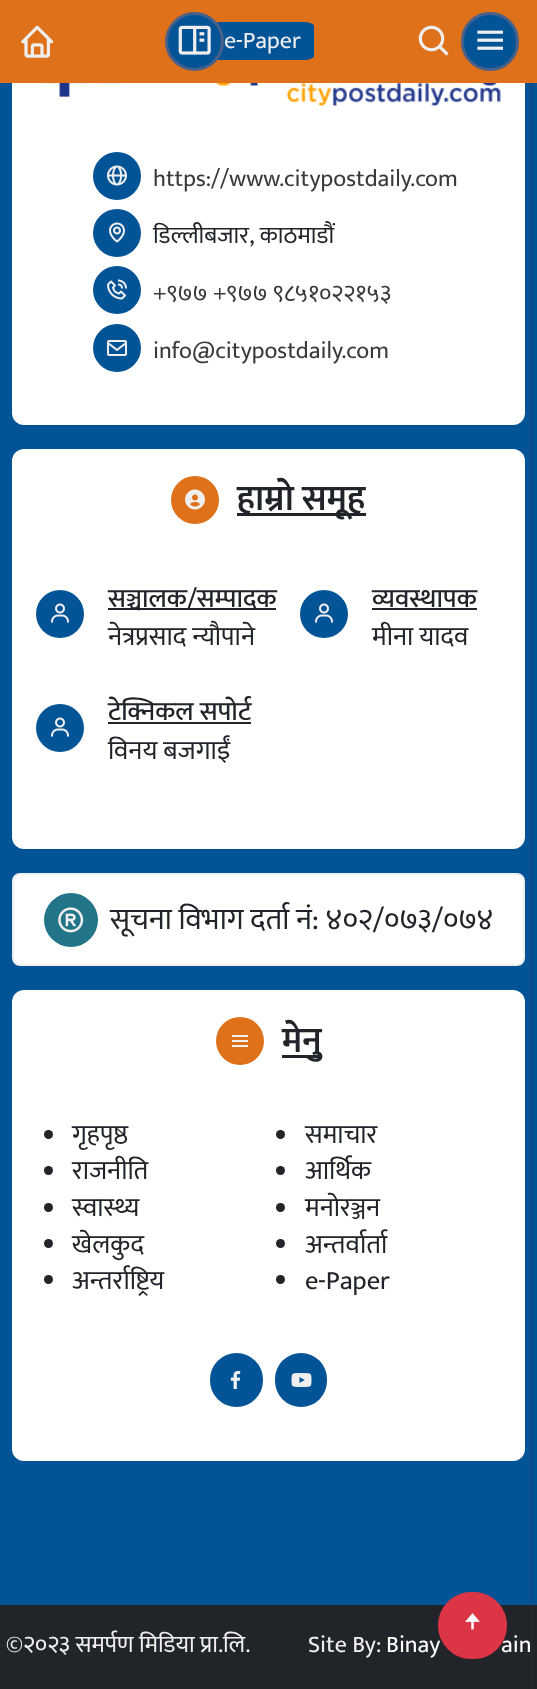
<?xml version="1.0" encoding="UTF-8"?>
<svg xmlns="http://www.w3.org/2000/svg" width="537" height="1689">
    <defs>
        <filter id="blur1" x="-50%" y="-200%" width="200%" height="500%"><feGaussianBlur stdDeviation="4"/></filter>
    </defs>
    <rect width="100%" height="100%" fill="#035397"/>
    <rect x="12" y="-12" width="513" height="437" rx="12" fill="#FFFFFF"/>
    <rect x="12" y="449" width="513" height="400" rx="12" fill="#FFFFFF"/>
    <rect x="13" y="874" width="511" height="91" rx="7" fill="#FFFFFF" stroke="#EFEFEF" stroke-width="2"/>
    <rect x="12" y="990" width="513" height="471" rx="12" fill="#FFFFFF"/>
    <rect x="0" y="1605" width="537" height="84" fill="#212529"/>
    <rect x="530" y="0" width="2" height="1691" fill="#292929" fill-opacity="0.66" filter="url(#blur1)"/>
    <rect x="0" y="0" width="537" height="83" fill="#DF711B"/>
    <image x="21" y="25" width="33" height="33" href="img_01.png"/>
    <path d="M 222 22 H 303 C 309 22 314 24 314 26 V 56 C 314 58 309 60 303 60 H 222 C 216 60 212 58 212 56 V 26 C 212 24 216 22 222 22 Z" fill="#035397"/>
    <circle cx="194.5" cy="41.5" r="28" fill="#035397" stroke="#47618B" stroke-width="3"/>
    <image x="178" y="25" width="33" height="30" href="img_02.png"/>
    <text x="224" y="48" font-family="Mukta" font-size="24" fill="#EFEFEF">e-Paper</text>
    <image x="418" y="25" width="31" height="31" href="img_03.png"/>
    <rect x="462.5" y="13.5" width="55" height="56" rx="27.5" fill="#035397" stroke="#47618B" stroke-width="3"/>
    <image x="477" y="30" width="26" height="20" href="img_04.png"/>
    <image x="27" y="83" width="485" height="24" href="img_05.png"/>
    <circle cx="117" cy="176" r="24" fill="#035397"/>
    <image x="107" y="165" width="20" height="21" href="img_06.png"/>
    <text x="153" y="186" font-family="Mukta" font-size="24" fill="#3A3A3A">https://www.citypostdaily.com</text>
    <circle cx="117" cy="233" r="24" fill="#035397"/>
    <image x="109" y="222" width="16" height="21" href="img_07.png"/>
    <text x="153" y="243" font-family="Mukta" font-size="24" fill="#212529">डिल्लीबजार, काठमाडौं</text>
    <circle cx="117" cy="290" r="24" fill="#035397"/>
    <image x="107" y="279" width="20" height="21" href="img_08.png"/>
    <text x="153" y="301" font-family="Mukta" font-size="24" fill="#3A3A3A">+९७७ +९७७ ९८५१०२२१५३</text>
    <circle cx="117" cy="348" r="24" fill="#035397"/>
    <image x="107" y="340" width="20" height="16" href="img_09.png"/>
    <text x="153" y="358" font-family="Mukta" font-size="24" fill="#3A3A3A">info@citypostdaily.com</text>
    <circle cx="195" cy="500" r="24" fill="#DF711B"/>
    <image x="185" y="489" width="20" height="21" href="img_10.png"/>
    <rect x="237" y="513" width="129" height="3" fill="#212529"/>
    <text x="237" y="510" font-family="Mukta" font-size="36" font-weight="600" fill="#212529">हाम्रो समूह</text>
    <circle cx="60" cy="614" r="24" fill="#035397"/>
    <image x="51" y="603" width="18" height="20" href="img_11.png"/>
    <rect x="108" y="608" width="168" height="2" fill="#212529"/>
    <text x="108" y="607" font-family="Mukta" font-size="26.5" font-weight="500" fill="#212529">सञ्चालक/सम्पादक</text>
    <text x="108" y="645" font-family="Mukta" font-size="26.5" fill="#212529">नेत्रप्रसाद न्यौपाने</text>
    <circle cx="324" cy="614" r="24" fill="#035397"/>
    <image x="315" y="603" width="18" height="20" href="img_11.png"/>
    <text x="372" y="607" font-family="Mukta" font-size="26.5" font-weight="500" fill="#212529">व्यवस्थापक</text>
    <rect x="372" y="608" width="105" height="2" fill="#212529"/>
    <text x="372" y="645" font-family="Mukta" font-size="26.5" fill="#212529">मीना यादव</text>
    <circle cx="60" cy="728" r="24" fill="#035397"/>
    <image x="51" y="717" width="18" height="20" href="img_11.png"/>
    <text x="108" y="720" font-family="Mukta" font-size="26.5" font-weight="500" fill="#212529">टेक्निकल सपोर्ट</text>
    <rect x="108" y="722" width="143" height="2" fill="#212529"/>
    <text x="108" y="759" font-family="Mukta" font-size="26.5" fill="#212529">विनय बजगाईं</text>
    <circle cx="71" cy="920" r="27" fill="#227588"/>
    <image x="58" y="907" width="26" height="26" href="img_12.png"/>
    <text x="110" y="929" font-family="Mukta" font-size="30" fill="#212529">सूचना विभाग दर्ता नं: ४०२/०७३/०७४</text>
    <circle cx="240" cy="1041" r="24" fill="#DF711B"/>
    <image x="232" y="1035" width="16" height="12" href="img_13.png"/>
    <rect x="282" y="1055" width="39" height="3" fill="#212529"/>
    <text x="282" y="1052" font-family="Mukta" font-size="36" font-weight="600" fill="#212529">मेनु</text>
    <circle cx="48.5" cy="1134.5" r="4.5" fill="#212529"/>
    <text x="72" y="1143" font-family="Mukta" font-size="26.5" fill="#212529">गृहपृष्ठ</text>
    <circle cx="280.5" cy="1134.5" r="4.5" fill="#212529"/>
    <text x="305" y="1143" font-family="Mukta" font-size="26.5" fill="#212529">समाचार</text>
    <circle cx="48.5" cy="1170.5" r="4.5" fill="#212529"/>
    <text x="72" y="1179" font-family="Mukta" font-size="26.5" fill="#212529">राजनीति</text>
    <circle cx="280.5" cy="1170.5" r="4.5" fill="#212529"/>
    <text x="305" y="1179" font-family="Mukta" font-size="26.5" fill="#212529">आर्थिक</text>
    <circle cx="48.5" cy="1207.5" r="4.5" fill="#212529"/>
    <text x="72" y="1216" font-family="Mukta" font-size="26.5" fill="#212529">स्वास्थ्य</text>
    <circle cx="280.5" cy="1207.5" r="4.5" fill="#212529"/>
    <text x="305" y="1216" font-family="Mukta" font-size="26.5" fill="#212529">मनोरञ्जन</text>
    <circle cx="48.5" cy="1243.5" r="4.5" fill="#212529"/>
    <text x="72" y="1253" font-family="Mukta" font-size="26.5" fill="#212529">खेलकुद</text>
    <circle cx="280.5" cy="1243.5" r="4.5" fill="#212529"/>
    <text x="305" y="1253" font-family="Mukta" font-size="26.5" fill="#212529">अन्तर्वार्ता</text>
    <circle cx="48.5" cy="1279.5" r="4.5" fill="#212529"/>
    <text x="72" y="1289" font-family="Mukta" font-size="26.5" fill="#212529">अन्तर्राष्ट्रिय</text>
    <circle cx="280.5" cy="1279.5" r="4.5" fill="#212529"/>
    <text x="305" y="1289" font-family="Mukta" font-size="26.5" fill="#212529">e-Paper</text>
    <rect x="210" y="1353" width="53" height="54" rx="26.5" fill="#035397"/>
    <image x="230" y="1371" width="11" height="18" href="img_14.png"/>
    <rect x="275" y="1353" width="52" height="54" rx="26" fill="#035397"/>
    <image x="291" y="1373" width="21" height="14" href="img_15.png"/>
    <text x="386" y="1652" font-family="Mukta" font-size="24" fill="#FFFFFF">Binay</text>
    <text x="501" y="1652" font-family="Mukta" font-size="24" fill="#FFFFFF">ain</text>
    <rect x="439" y="1593" width="67" height="65" rx="32.5" fill="#DC3545" stroke="#DC3545" stroke-width="2"/>
    <image x="465" y="1613" width="15" height="17" href="img_16.png"/>
    <text x="6" y="1652" font-family="Mukta" font-size="24" fill="#EFEFEF">©२०२३ समर्पण मिडिया प्रा.लि.</text>
    <text x="308" y="1652" font-family="Mukta" font-size="24" fill="#EFEFEF">Site By:</text>
</svg>
